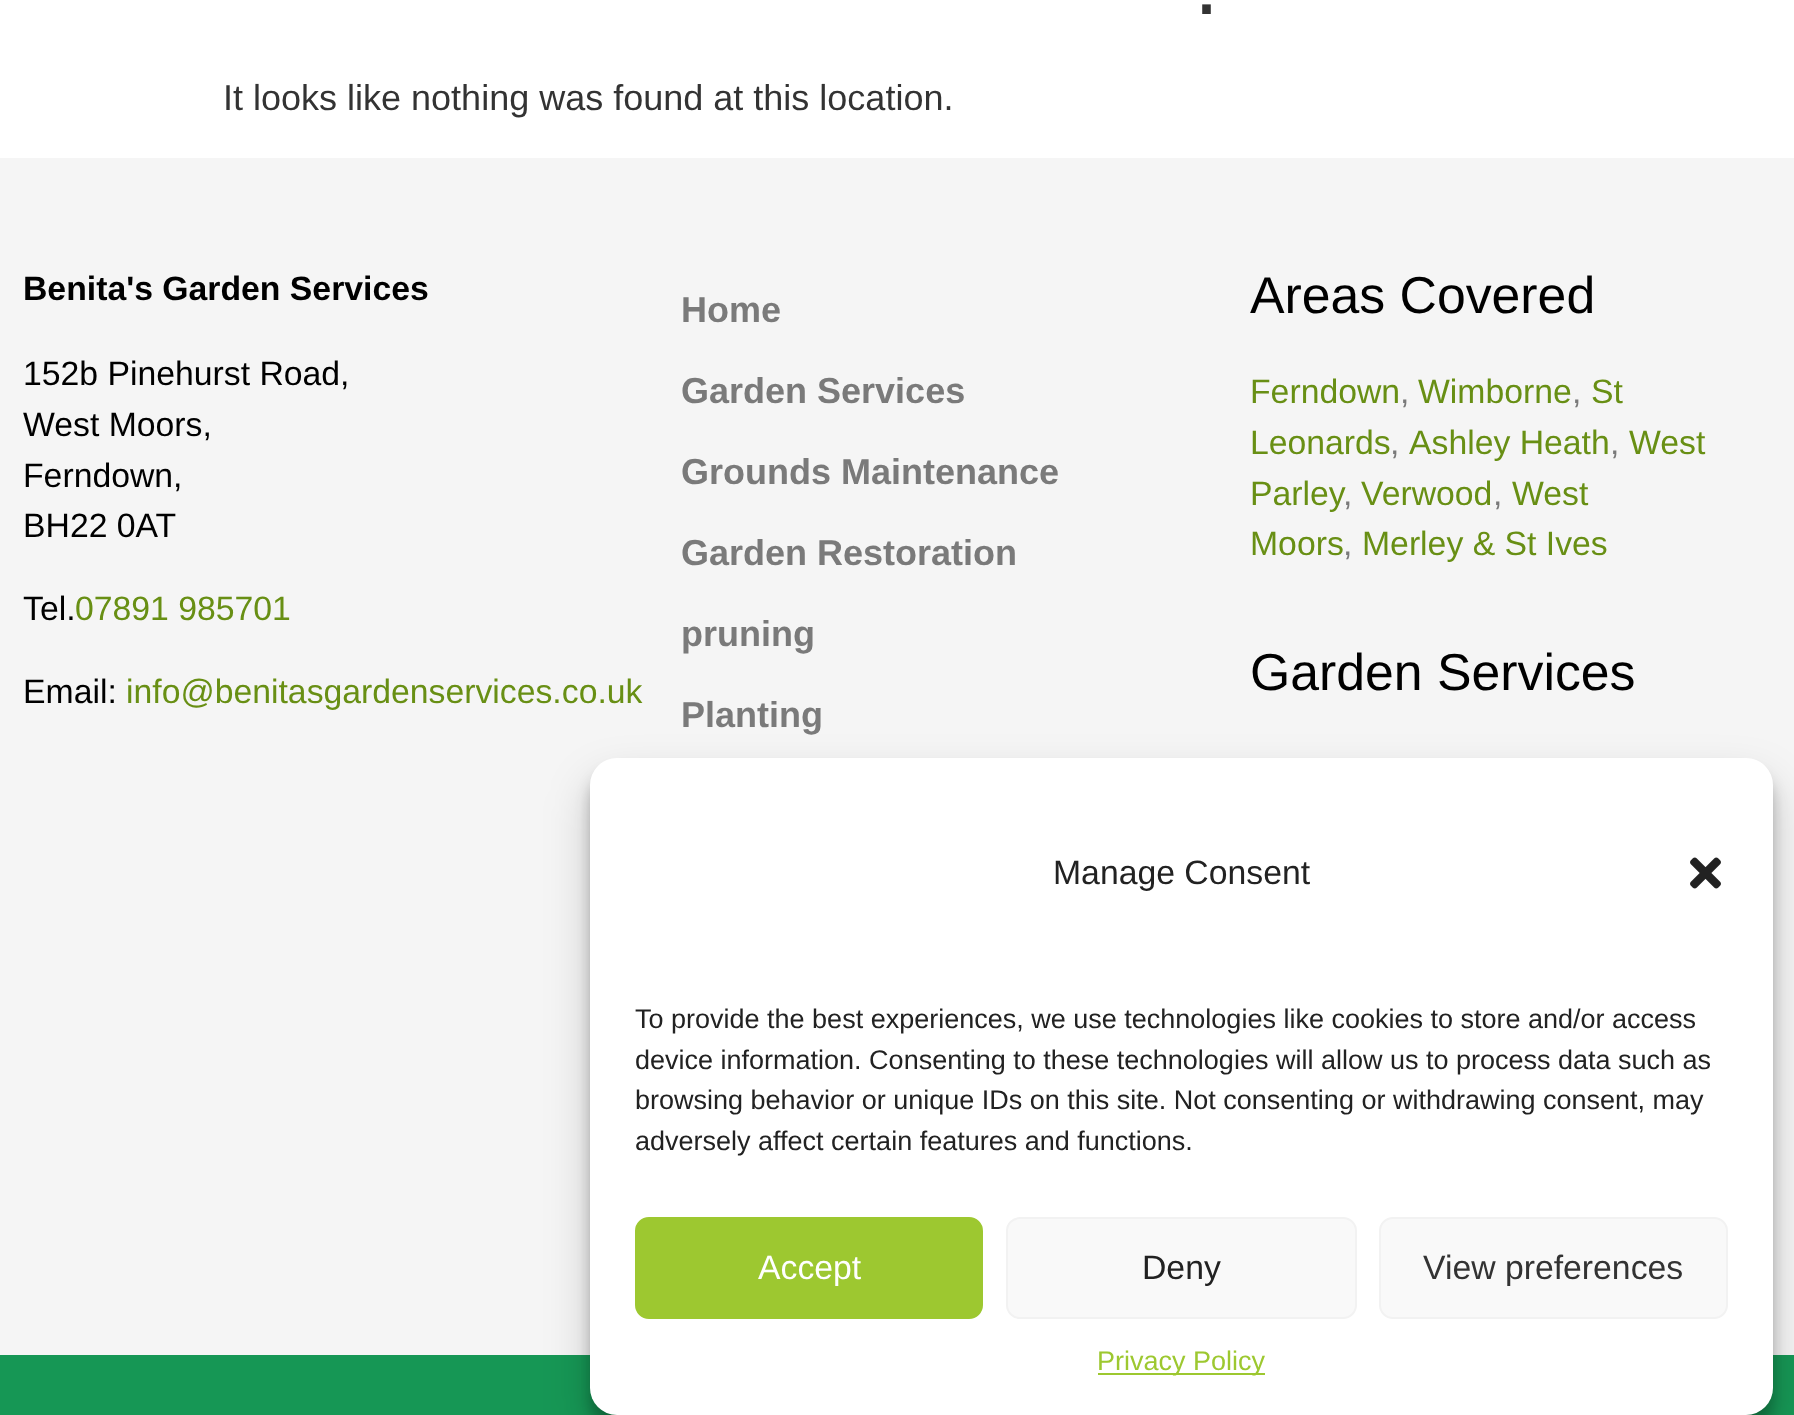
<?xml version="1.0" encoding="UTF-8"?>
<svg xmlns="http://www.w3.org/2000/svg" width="1794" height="1415">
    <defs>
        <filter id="blur1" x="-50%" y="-200%" width="200%" height="500%"><feGaussianBlur stdDeviation="7"/></filter>
        <filter id="blur2" x="-50%" y="-200%" width="200%" height="500%"><feGaussianBlur stdDeviation="22.5"/></filter>
    </defs>
    <rect width="100%" height="100%" fill="#FFFFFF"/>
    <text x="1194" y="14" font-family="Liberation Sans" font-size="90" fill="#333333">.</text>
    <text x="223" y="110" font-family="Liberation Sans" font-size="36" fill="#333333">It looks like nothing was found at this location.</text>
    <rect x="0" y="158" width="1794" height="1197" fill="#F5F5F5"/>
    <text x="23" y="300" font-family="Liberation Sans" font-size="33.75" font-weight="700" fill="#000000">Benita's Garden Services</text>
    <text font-family="Liberation Sans" font-size="33.75" fill="#000000">
        <tspan x="23" y="385">152b Pinehurst Road,</tspan>
        <tspan x="23" y="436">West Moors,</tspan>
        <tspan x="23" y="487">Ferndown,</tspan>
        <tspan x="23" y="537">BH22 0AT</tspan>
    </text>
    <text x="23" y="620" font-family="Liberation Sans" font-size="33.75" fill="#000000">Tel.</text>
    <text x="75" y="620" font-family="Liberation Sans" font-size="33.75" fill="#688F14">07891 985701</text>
    <text x="23" y="703" font-family="Liberation Sans" font-size="33.75" fill="#000000">Email:</text>
    <text x="126" y="703" font-family="Liberation Sans" font-size="33.75" fill="#688F14">info@benitasgardenservices.co.uk</text>
    <text x="681" y="322" font-family="Liberation Sans" font-size="36" font-weight="700" fill="#7A7A7A">Home</text>
    <text x="681" y="403" font-family="Liberation Sans" font-size="36" font-weight="700" fill="#7A7A7A">Garden Services</text>
    <text x="681" y="484" font-family="Liberation Sans" font-size="36" font-weight="700" fill="#7A7A7A">Grounds Maintenance</text>
    <text x="681" y="565" font-family="Liberation Sans" font-size="36" font-weight="700" fill="#7A7A7A">Garden Restoration</text>
    <text x="681" y="646" font-family="Liberation Sans" font-size="36" font-weight="700" fill="#7A7A7A">pruning</text>
    <text x="681" y="727" font-family="Liberation Sans" font-size="36" font-weight="700" fill="#7A7A7A">Planting</text>
    <text x="1250" y="313" font-family="Liberation Sans" font-size="51.75" fill="#000000">Areas Covered</text>
    <text x="1250" y="403" font-family="Liberation Sans" font-size="33.75" fill="#688F14">Ferndown</text>
    <text x="1400" y="403" font-family="Liberation Sans" font-size="33.75" fill="#7A7A7A">,</text>
    <text x="1418" y="403" font-family="Liberation Sans" font-size="33.75" fill="#688F14">Wimborne</text>
    <text x="1572" y="403" font-family="Liberation Sans" font-size="33.75" fill="#7A7A7A">,</text>
    <text x="1591" y="403" font-family="Liberation Sans" font-size="33.75" fill="#688F14">St</text>
    <text x="1250" y="454" font-family="Liberation Sans" font-size="33.75" fill="#688F14">Leonards</text>
    <text x="1390" y="454" font-family="Liberation Sans" font-size="33.75" fill="#7A7A7A">,</text>
    <text x="1409" y="454" font-family="Liberation Sans" font-size="33.75" fill="#688F14">Ashley Heath</text>
    <text x="1610" y="454" font-family="Liberation Sans" font-size="33.75" fill="#7A7A7A">,</text>
    <text x="1629" y="454" font-family="Liberation Sans" font-size="33.75" fill="#688F14">West</text>
    <text x="1250" y="505" font-family="Liberation Sans" font-size="33.75" fill="#688F14">Parley</text>
    <text x="1343" y="505" font-family="Liberation Sans" font-size="33.75" fill="#7A7A7A">,</text>
    <text x="1361" y="505" font-family="Liberation Sans" font-size="33.75" fill="#688F14">Verwood</text>
    <text x="1493" y="505" font-family="Liberation Sans" font-size="33.75" fill="#7A7A7A">,</text>
    <text x="1512" y="505" font-family="Liberation Sans" font-size="33.75" fill="#688F14">West</text>
    <text x="1250" y="555" font-family="Liberation Sans" font-size="33.75" fill="#688F14">Moors</text>
    <text x="1343" y="555" font-family="Liberation Sans" font-size="33.75" fill="#7A7A7A">,</text>
    <text x="1362" y="555" font-family="Liberation Sans" font-size="33.75" fill="#688F14">Merley &amp; St Ives</text>
    <text x="1250" y="690" font-family="Liberation Sans" font-size="51.75" fill="#000000">Garden Services</text>
    <rect x="0" y="1355" width="1794" height="60" fill="#169755"/>
    <rect x="590" y="772" width="1183" height="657" rx="27" fill="#000000" fill-opacity="0.23" filter="url(#blur1)"/>
    <rect x="590" y="781" width="1183" height="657" rx="27" fill="#000000" fill-opacity="0.19" filter="url(#blur2)"/>
    <rect x="590" y="758" width="1183" height="657" rx="27" fill="#FFFFFF"/>
    <text x="1053" y="884" font-family="Liberation Sans" font-size="33.75" fill="#222222">Manage Consent</text>
    <image x="1690" y="857" width="31" height="32" href="img_01.png"/>
    <text font-family="Liberation Sans" font-size="27" fill="#222222">
        <tspan x="635" y="1028">To provide the best experiences, we use technologies like cookies to store and/or access</tspan>
        <tspan x="635" y="1069">device information. Consenting to these technologies will allow us to process data such as</tspan>
        <tspan x="635" y="1109">browsing behavior or unique IDs on this site. Not consenting or withdrawing consent, may</tspan>
        <tspan x="635" y="1150">adversely affect certain features and functions.</tspan>
    </text>
    <rect x="636" y="1218" width="346" height="100" rx="13" fill="#9DC830" stroke="#9DC830" stroke-width="2"/>
    <text x="758" y="1279" font-family="Liberation Sans" font-size="33.75" fill="#FFFFFF">Accept</text>
    <rect x="1007" y="1218" width="349" height="100" rx="13" fill="#F9F9F9" stroke="#F2F2F2" stroke-width="2"/>
    <text x="1142" y="1279" font-family="Liberation Sans" font-size="33.75" fill="#222222">Deny</text>
    <rect x="1380" y="1218" width="347" height="100" rx="13" fill="#F9F9F9" stroke="#F2F2F2" stroke-width="2"/>
    <text x="1423" y="1279" font-family="Liberation Sans" font-size="33.75" fill="#333333">View preferences</text>
    <rect x="1098" y="1373" width="167" height="2" fill="#9DC830"/>
    <text x="1097" y="1370" font-family="Liberation Sans" font-size="27" fill="#9DC830">Privacy Policy</text>
</svg>
